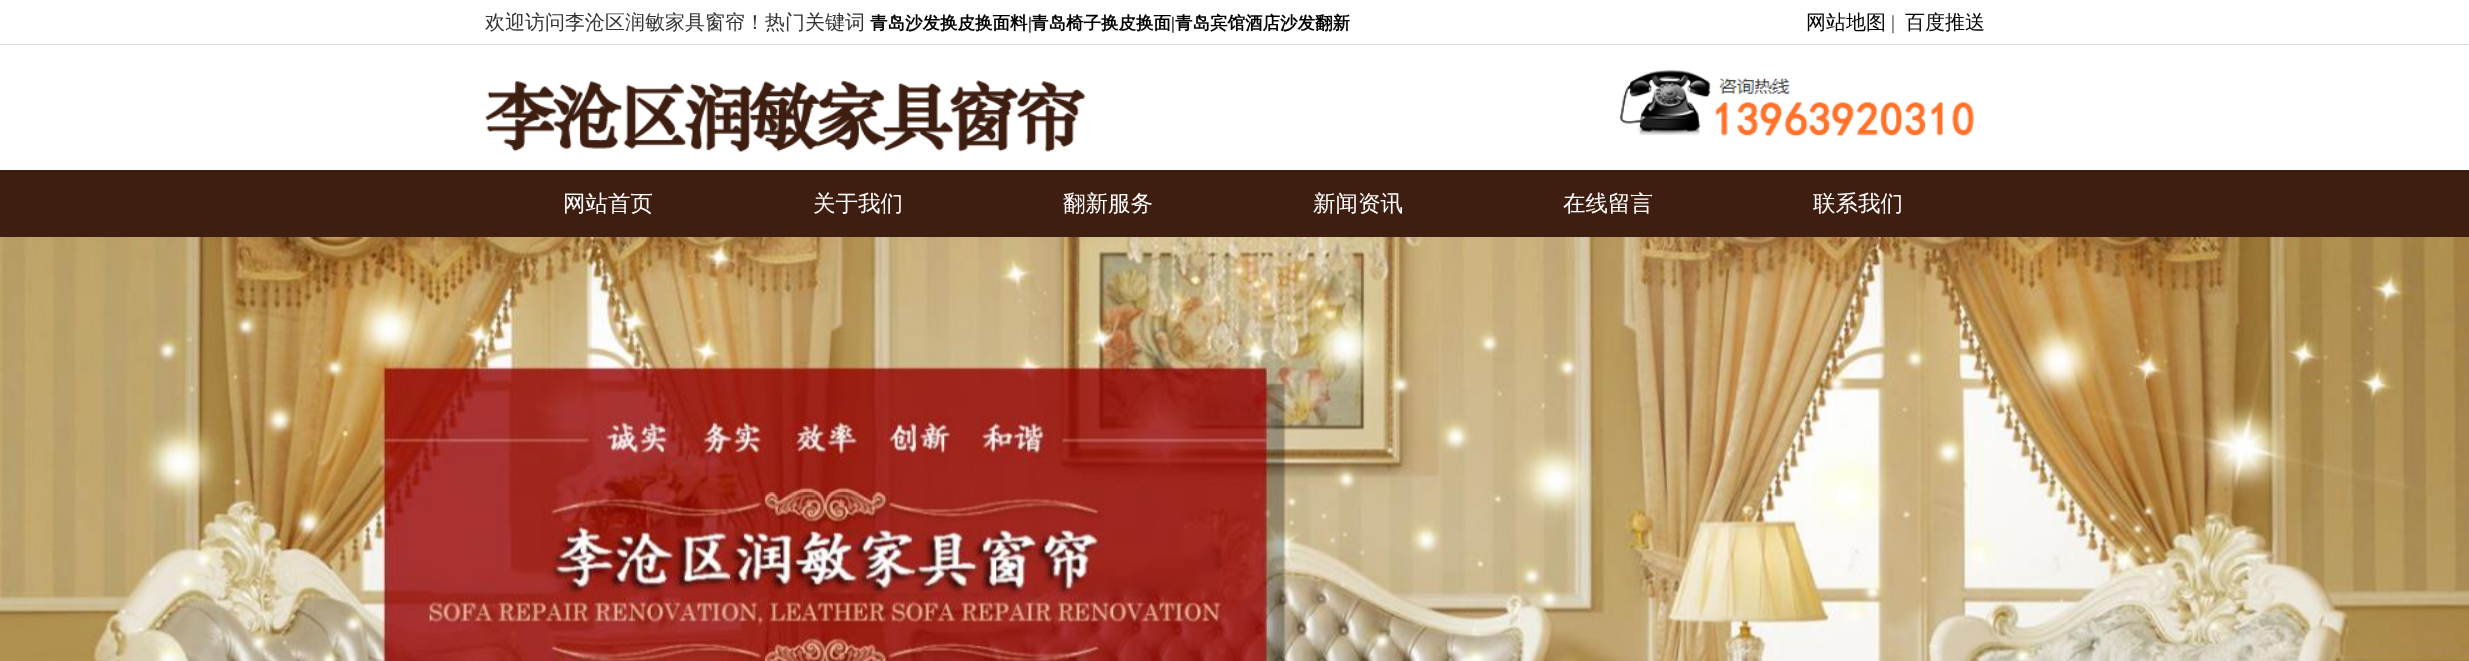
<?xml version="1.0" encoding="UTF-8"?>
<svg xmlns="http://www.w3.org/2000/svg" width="2469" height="661">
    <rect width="100%" height="100%" fill="#FFFFFF"/>
    <rect x="0" y="44" width="2469" height="1" fill="#DDDDDD"/>
    <text x="485" y="29" font-family="WenQuanYi Zen Hei" font-size="20" font-weight="500" fill="#333333">欢迎访问李沧区润敏家具窗帘！热门关键词</text>
    <text x="870" y="29" font-family="WenQuanYi Zen Hei" font-size="17.5" font-weight="700" fill="#000000">青岛沙发换皮换面料</text>
    <text x="1028" y="29" font-family="Liberation Serif" font-size="17.5" font-weight="700" fill="#000000">|</text>
    <text x="1031" y="29" font-family="WenQuanYi Zen Hei" font-size="17.5" font-weight="700" fill="#000000">青岛椅子换皮换面</text>
    <text x="1171" y="29" font-family="Liberation Serif" font-size="17.5" font-weight="700" fill="#000000">|</text>
    <text x="1175" y="29" font-family="WenQuanYi Zen Hei" font-size="17.5" font-weight="700" fill="#000000">青岛宾馆酒店沙发翻新</text>
    <text x="1806" y="29" font-family="WenQuanYi Zen Hei" font-size="20" font-weight="500" fill="#000000">网站地图</text>
    <text x="1891" y="29" font-family="Liberation Serif" font-size="20" fill="#333333">|</text>
    <text x="1905" y="29" font-family="WenQuanYi Zen Hei" font-size="20" font-weight="500" fill="#000000">百度推送</text>
    <image x="485" y="80" width="601" height="73" href="img_01.png"/>
    <image x="1619" y="69" width="355" height="68" href="img_02.png"/>
    <rect x="0" y="170" width="2469" height="67" fill="#3E1E11"/>
    <text x="563" y="211" font-family="WenQuanYi Zen Hei" font-size="22.5" font-weight="500" fill="#FFFFFF">网站首页</text>
    <text x="813" y="211" font-family="WenQuanYi Zen Hei" font-size="22.5" font-weight="500" fill="#FFFFFF">关于我们</text>
    <text x="1063" y="211" font-family="WenQuanYi Zen Hei" font-size="22.5" font-weight="500" fill="#FFFFFF">翻新服务</text>
    <text x="1313" y="211" font-family="WenQuanYi Zen Hei" font-size="22.5" font-weight="500" fill="#FFFFFF">新闻资讯</text>
    <text x="1563" y="211" font-family="WenQuanYi Zen Hei" font-size="22.5" font-weight="500" fill="#FFFFFF">在线留言</text>
    <text x="1813" y="211" font-family="WenQuanYi Zen Hei" font-size="22.5" font-weight="500" fill="#FFFFFF">联系我们</text>
    <image x="0" y="237" width="2469" height="424" href="img_03.png"/>
</svg>
